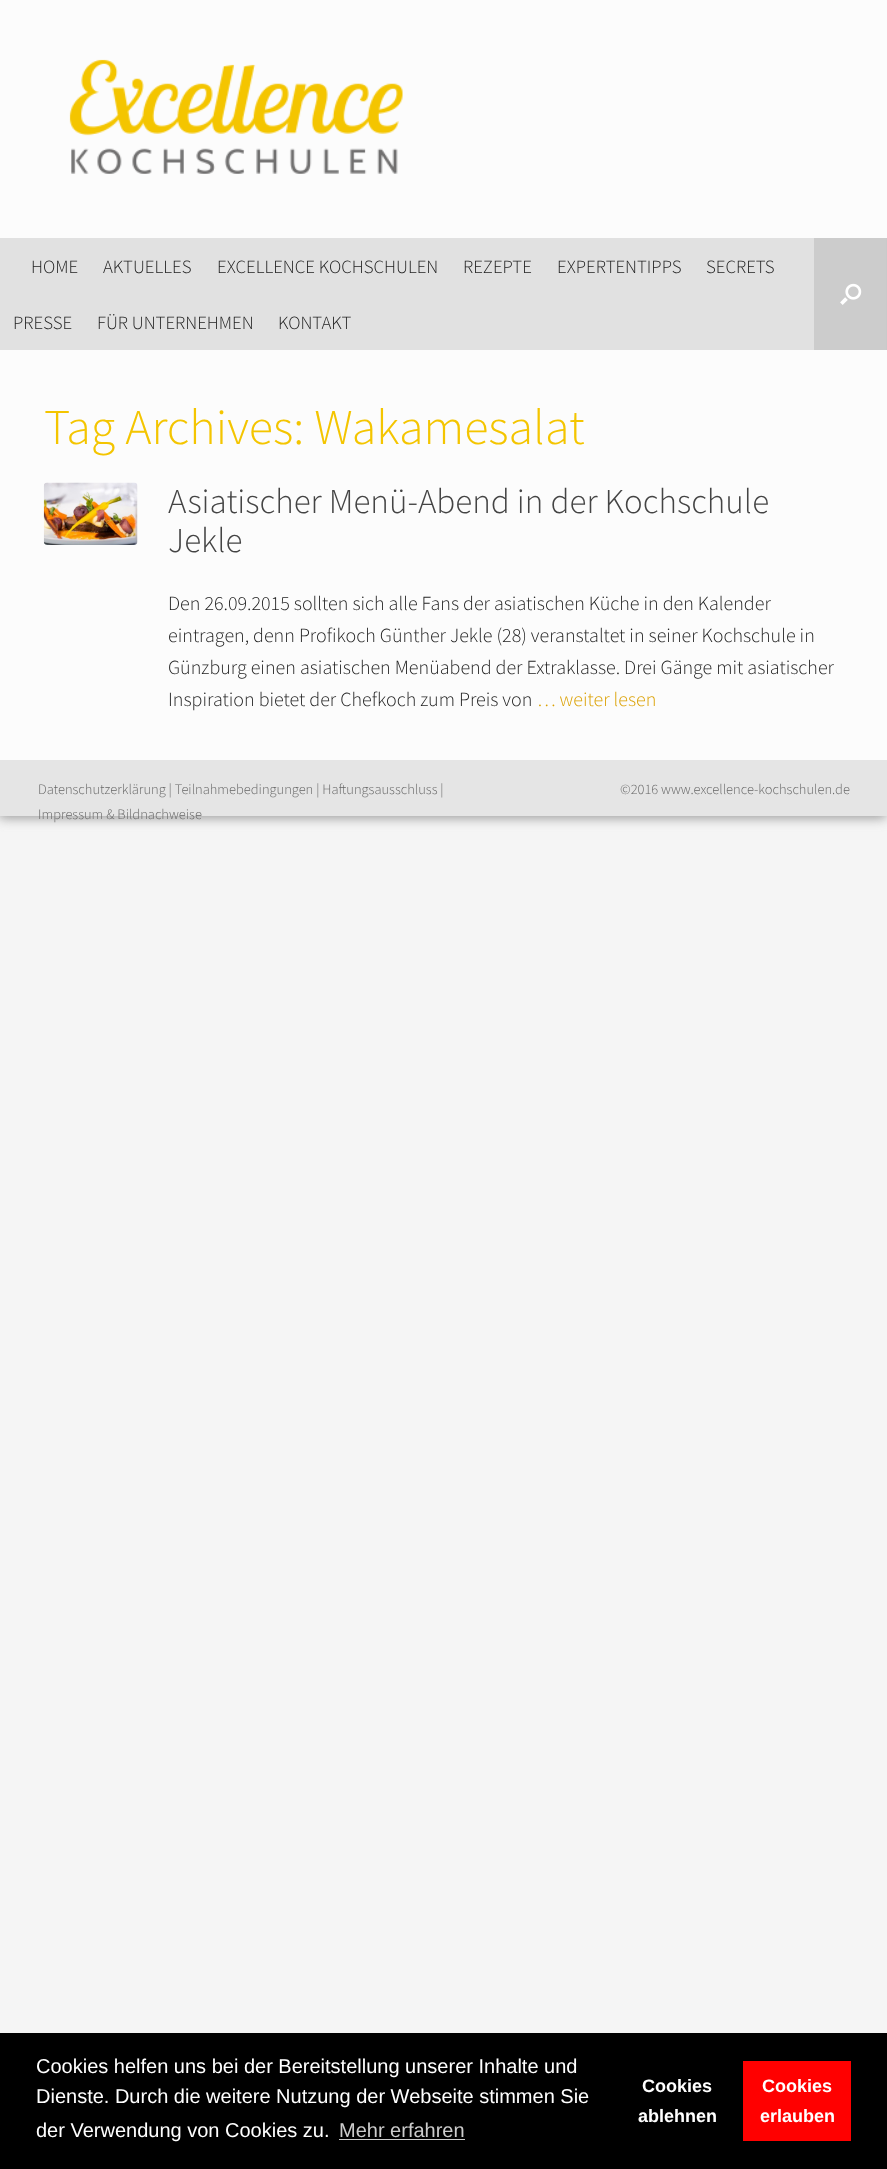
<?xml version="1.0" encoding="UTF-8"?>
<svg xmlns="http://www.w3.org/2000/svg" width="887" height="2169">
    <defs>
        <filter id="blur1" x="-50%" y="-200%" width="200%" height="500%"><feGaussianBlur stdDeviation="6"/></filter>
    </defs>
    <rect width="100%" height="100%" fill="#F5F5F5"/>
    <rect x="-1" y="1" width="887" height="817" fill="#999999" filter="url(#blur1)"/>
    <rect x="0" y="0" width="887" height="238" fill="#FCFCFC"/>
    <image x="69" y="59" width="334" height="115" href="img_01.png"/>
    <rect x="0" y="238" width="814" height="112" fill="#E1E1E1"/>
    <text x="31" y="273" font-family="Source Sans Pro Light" font-size="18.75" font-weight="300" fill="#222222">HOME</text>
    <text x="103" y="273" font-family="Source Sans Pro Light" font-size="18.75" font-weight="300" fill="#222222">AKTUELLES</text>
    <text x="217" y="273" font-family="Source Sans Pro Light" font-size="18.75" font-weight="300" fill="#222222">EXCELLENCE KOCHSCHULEN</text>
    <text x="463" y="273" font-family="Source Sans Pro Light" font-size="18.75" font-weight="300" fill="#222222">REZEPTE</text>
    <text x="557" y="273" font-family="Source Sans Pro Light" font-size="18.75" font-weight="300" fill="#222222">EXPERTENTIPPS</text>
    <text x="706" y="273" font-family="Source Sans Pro Light" font-size="18.75" font-weight="300" fill="#222222">SECRETS</text>
    <text x="13" y="329" font-family="Source Sans Pro Light" font-size="18.75" font-weight="300" fill="#222222">PRESSE</text>
    <text x="97" y="329" font-family="Source Sans Pro Light" font-size="18.75" font-weight="300" fill="#222222">FÜR UNTERNEHMEN</text>
    <text x="278" y="329" font-family="Source Sans Pro Light" font-size="18.75" font-weight="300" fill="#222222">KONTAKT</text>
    <rect x="814" y="238" width="72" height="112" fill="#CCCCCC"/>
    <image x="840" y="283" width="22" height="22" href="img_02.png"/>
    <rect x="0" y="350" width="887" height="410" fill="#FCFCFC"/>
    <text x="44" y="444" font-family="Source Sans Pro Light" font-size="50" font-weight="300" fill="#F4C500">Tag Archives: Wakamesalat</text>
    <image x="43" y="482" width="95" height="63" href="img_03.png"/>
    <text font-family="Source Sans Pro Light" font-size="35" font-weight="300" fill="#444444">
        <tspan x="168" y="513">Asiatischer Menü-Abend in der Kochschule</tspan>
        <tspan x="168" y="552">Jekle</tspan>
    </text>
    <text font-family="Source Sans Pro Light" font-size="20" font-weight="300" fill="#222222">
        <tspan x="168" y="610">Den 26.09.2015 sollten sich alle Fans der asiatischen Küche in den Kalender</tspan>
        <tspan x="168" y="642">eintragen, denn Profikoch Günther Jekle (28) veranstaltet in seiner Kochschule in</tspan>
        <tspan x="168" y="674">Günzburg einen asiatischen Menüabend der Extraklasse. Drei Gänge mit asiatischer</tspan>
        <tspan x="168" y="706">Inspiration bietet der Chefkoch zum Preis von</tspan>
    </text>
    <text x="537" y="706" font-family="Source Sans Pro Light" font-size="20" font-weight="300" fill="#DBA000">… weiter lesen</text>
    <rect x="0" y="760" width="887" height="56" fill="#E5E5E5"/>
    <text font-family="Source Sans Pro Light" font-size="14.4" font-weight="300" fill="#666666">
        <tspan x="38" y="794">Datenschutzerklärung | Teilnahmebedingungen | Haftungsausschluss |</tspan>
        <tspan x="38" y="819">Impressum &amp; Bildnachweise</tspan>
    </text>
    <text x="620" y="794" font-family="Source Sans Pro Light" font-size="14.4" font-weight="300" fill="#666666">©2016 www.excellence-kochschulen.de</text>
    <rect x="0" y="2033" width="887" height="136" fill="#000000"/>
    <text font-family="Liberation Sans" font-size="20" fill="#FFFFFF">
        <tspan x="36" y="2073">Cookies helfen uns bei der Bereitstellung unserer Inhalte und</tspan>
        <tspan x="36" y="2103">Dienste. Durch die weitere Nutzung der Webseite stimmen Sie</tspan>
        <tspan x="36" y="2137">der Verwendung von Cookies zu.</tspan>
    </text>
    <text x="339" y="2137" font-family="Liberation Sans" font-size="20" fill="#CCCCCC">Mehr erfahren</text>
    <rect x="339" y="2139" width="126" height="1" fill="#CCCCCC"/>
    <text x="642" y="2092" font-family="Liberation Sans" font-size="18" font-weight="700" fill="#FFFFFF">Cookies</text>
    <text x="638" y="2122" font-family="Liberation Sans" font-size="18" font-weight="700" fill="#FFFFFF">ablehnen</text>
    <rect x="743" y="2061" width="108" height="80" fill="#FF0000"/>
    <text x="762" y="2092" font-family="Liberation Sans" font-size="18" font-weight="700" fill="#FFFFFF">Cookies</text>
    <text x="760" y="2122" font-family="Liberation Sans" font-size="18" font-weight="700" fill="#FFFFFF">erlauben</text>
</svg>
